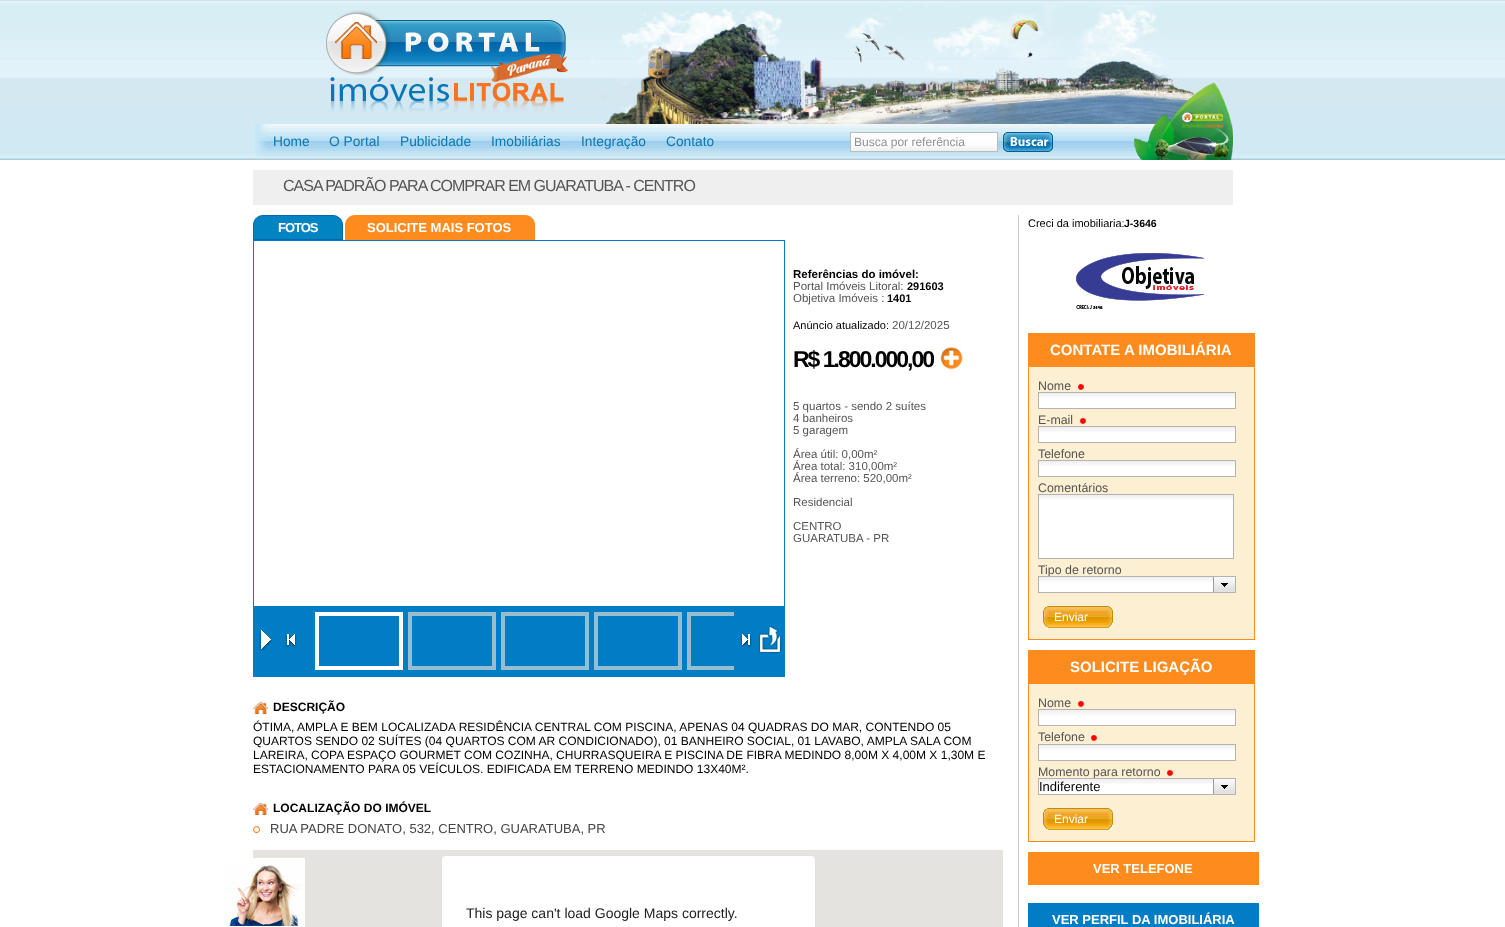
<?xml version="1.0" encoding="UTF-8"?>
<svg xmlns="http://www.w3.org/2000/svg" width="1505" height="927">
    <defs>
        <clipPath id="clip1"><rect x="304" y="606" width="430" height="70"/></clipPath>
    </defs>
    <rect width="100%" height="100%" fill="#FFFFFF"/>
    <image x="0" y="0" width="1505" height="160" href="img_01.png"/>
    <image x="326" y="10" width="242" height="102" href="img_02.png"/>
    <image x="591" y="5" width="603" height="119" href="img_03.png"/>
    <image x="273" y="124" width="884" height="33" href="img_04.png"/>
    <image x="253" y="124" width="20" height="36" href="img_05.png"/>
    <text x="273" y="146" font-family="Liberation Sans" font-size="13.75" fill="#0977B4">Home</text>
    <text x="329" y="146" font-family="Liberation Sans" font-size="13.75" fill="#0977B4">O Portal</text>
    <text x="400" y="146" font-family="Liberation Sans" font-size="13.75" fill="#0977B4">Publicidade</text>
    <text x="491" y="146" font-family="Liberation Sans" font-size="13.75" fill="#0977B4">Imobiliárias</text>
    <text x="581" y="146" font-family="Liberation Sans" font-size="13.75" fill="#0977B4">Integração</text>
    <text x="666" y="146" font-family="Liberation Sans" font-size="13.75" fill="#0977B4">Contato</text>
    <image x="851" y="133" width="146" height="18" href="img_06.png"/>
    <rect x="850.5" y="132.5" width="147" height="19" fill="none" stroke="#BDBCBD"/>
    <text x="854" y="146" font-family="Liberation Sans" font-size="12.02" fill="#919191">Busca por referência</text>
    <image x="1003" y="132" width="50" height="20" href="img_07.png"/>
    <image x="1134" y="82" width="99" height="78" href="img_08.png"/>
    <rect x="253" y="170" width="980" height="35" fill="#EFEFEF"/>
    <text x="283" y="191" font-family="Liberation Sans" font-size="16" letter-spacing="-1" fill="#555555">CASA PADRÃO PARA COMPRAR EM GUARATUBA - CENTRO</text>
    <rect x="1018" y="215" width="1" height="712" fill="#CCCCCC"/>
    <image x="253" y="215" width="90" height="25" href="img_09.png"/>
    <text x="278" y="232" font-family="Liberation Sans" font-size="13" font-weight="700" letter-spacing="-1" fill="#FFFFFF">FOTOS</text>
    <path d="M 355 215 H 525 C 530.5 215 535 219.5 535 225 V 240 H 345 V 225 C 345 219.5 349.5 215 355 215 Z" fill="#FE8B1E"/>
    <text x="367" y="232" font-family="Liberation Sans" font-size="13" font-weight="700" fill="#FFFFFF">SOLICITE MAIS FOTOS</text>
    <rect x="253.5" y="240.5" width="531" height="436" fill="none" stroke="#007DC4"/>
    <rect x="254" y="606" width="530" height="70" fill="#007DC4"/>
    <rect x="317" y="614" width="84" height="54" fill="none" stroke="#FFFFFF" stroke-width="4"/>
    <rect x="410" y="614" width="84" height="54" fill="none" stroke="#97BDD1" stroke-width="4"/>
    <rect x="503" y="614" width="84" height="54" fill="none" stroke="#97BDD1" stroke-width="4"/>
    <rect x="596" y="614" width="84" height="54" fill="none" stroke="#97BDD1" stroke-width="4"/>
    <g clip-path="url(#clip1)">
        <rect x="689" y="614" width="84" height="54" fill="none" stroke="#97BDD1" stroke-width="4"/>
    </g>
    <image x="259" y="630" width="13" height="21" href="img_10.png"/>
    <image x="285" y="633" width="12" height="15" href="img_11.png"/>
    <image x="740" y="633" width="12" height="15" href="img_12.png"/>
    <image x="759" y="626" width="23" height="28" href="img_13.png"/>
    <text x="793" y="278" font-family="Liberation Sans" font-size="11.5" font-weight="700" fill="#000000">Referências do imóvel:</text>
    <text x="793" y="290" font-family="Liberation Sans" font-size="11.5" fill="#555555">Portal Imóveis Litoral:</text>
    <text x="907" y="290" font-family="Liberation Sans" font-size="11" font-weight="700" fill="#000000">291603</text>
    <text x="793" y="302" font-family="Liberation Sans" font-size="11.5" fill="#555555">Objetiva Imóveis :</text>
    <text x="887" y="302" font-family="Liberation Sans" font-size="11" font-weight="700" fill="#000000">1401</text>
    <text x="793" y="329" font-family="Liberation Sans" font-size="11" fill="#000000">Anúncio atualizado:</text>
    <text x="892" y="329" font-family="Liberation Sans" font-size="11.5" fill="#555555">20/12/2025</text>
    <text x="793" y="367" font-family="Liberation Sans" font-size="23" font-weight="700" letter-spacing="-2" fill="#000000">R$ 1.800.000,00</text>
    <image x="940" y="347" width="23" height="23" href="img_14.png"/>
    <text font-family="Liberation Sans" font-size="11.5" fill="#555555">
        <tspan x="793" y="410">5 quartos - sendo 2 suítes</tspan>
        <tspan x="793" y="422">4 banheiros</tspan>
        <tspan x="793" y="434">5 garagem</tspan>
    </text>
    <text font-family="Liberation Sans" font-size="11.5" fill="#555555">
        <tspan x="793" y="458">Área útil: 0,00m²</tspan>
        <tspan x="793" y="470">Área total: 310,00m²</tspan>
        <tspan x="793" y="482">Área terreno: 520,00m²</tspan>
    </text>
    <text x="793" y="506" font-family="Liberation Sans" font-size="11.5" fill="#555555">Residencial</text>
    <text font-family="Liberation Sans" font-size="11.5" fill="#555555">
        <tspan x="793" y="530">CENTRO</tspan>
        <tspan x="793" y="542">GUARATUBA - PR</tspan>
    </text>
    <image x="253" y="702" width="15" height="13" href="img_15.png"/>
    <text x="273" y="711" font-family="Liberation Sans" font-size="12.02" font-weight="700" fill="#000000">DESCRIÇÃO</text>
    <text font-family="Liberation Sans" font-size="12.02" fill="#000000">
        <tspan x="253" y="731">ÓTIMA, AMPLA E BEM LOCALIZADA RESIDÊNCIA CENTRAL COM PISCINA, APENAS 04 QUADRAS DO MAR, CONTENDO 05</tspan>
        <tspan x="253" y="745">QUARTOS SENDO 02 SUÍTES (04 QUARTOS COM AR CONDICIONADO), 01 BANHEIRO SOCIAL, 01 LAVABO, AMPLA SALA COM</tspan>
        <tspan x="253" y="759">LAREIRA, COPA ESPAÇO GOURMET COM COZINHA, CHURRASQUEIRA E PISCINA DE FIBRA MEDINDO 8,00M X 4,00M X 1,30M E</tspan>
        <tspan x="253" y="773">ESTACIONAMENTO PARA 05 VEÍCULOS. EDIFICADA EM TERRENO MEDINDO 13X40M².</tspan>
    </text>
    <image x="253" y="803" width="15" height="13" href="img_15.png"/>
    <text x="273" y="812" font-family="Liberation Sans" font-size="12.02" font-weight="700" fill="#000000">LOCALIZAÇÃO DO IMÓVEL</text>
    <image x="253" y="826" width="7" height="7" href="img_16.png"/>
    <text x="270" y="833" font-family="Liberation Sans" font-size="13" fill="#444444">RUA PADRE DONATO, 532, CENTRO, GUARATUBA, PR</text>
    <rect x="253" y="850" width="750" height="77" fill="#E5E3DF"/>
    <rect x="441" y="855" width="375" height="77" rx="5" fill="#FFFFFF"/>
    <rect x="441.5" y="855.5" width="374" height="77" rx="4.5" fill="none" stroke="#000000" stroke-opacity="0.12"/>
    <text x="466" y="918" font-family="Liberation Sans" font-size="14" fill="#212121">This page can't load Google Maps correctly.</text>
    <text x="1028" y="227" font-family="Liberation Sans" font-size="11" fill="#000000">Creci da imobiliaria:</text>
    <text x="1124" y="227" font-family="Liberation Sans" font-size="10.5" font-weight="700" fill="#000000">J-3646</text>
    <image x="1076" y="253" width="128" height="56" href="img_17.png"/>
    <rect x="1028" y="333" width="227" height="33" fill="#FE8B1E"/>
    <text x="1050" y="355" font-family="Liberation Sans" font-size="15" font-weight="700" fill="#FFFFFF">CONTATE A IMOBILIÁRIA</text>
    <rect x="1028.5" y="366.5" width="226" height="273" fill="#FDEFD2" stroke="#FE8B1E"/>
    <image x="1078" y="384" width="6" height="6" href="img_18.png"/>
    <text x="1038" y="390" font-family="Liberation Sans" font-size="12.4" fill="#555555">Nome</text>
    <rect x="1039" y="394" width="196" height="14" fill="#FFFFFF"/>
    <image x="1039" y="393" width="196" height="5" href="img_19.png"/>
    <rect x="1038.5" y="392.5" width="197" height="16" fill="none" stroke="#B3B3B3"/>
    <image x="1080" y="418" width="6" height="6" href="img_18.png"/>
    <text x="1038" y="424" font-family="Liberation Sans" font-size="12.4" fill="#555555">E-mail</text>
    <rect x="1039" y="428" width="196" height="14" fill="#FFFFFF"/>
    <image x="1039" y="427" width="196" height="5" href="img_19.png"/>
    <rect x="1038.5" y="426.5" width="197" height="16" fill="none" stroke="#B3B3B3"/>
    <text x="1038" y="458" font-family="Liberation Sans" font-size="12.4" fill="#555555">Telefone</text>
    <rect x="1039" y="462" width="196" height="14" fill="#FFFFFF"/>
    <image x="1039" y="461" width="196" height="5" href="img_19.png"/>
    <rect x="1038.5" y="460.5" width="197" height="16" fill="none" stroke="#B3B3B3"/>
    <text x="1038" y="492" font-family="Liberation Sans" font-size="12.4" fill="#555555">Comentários</text>
    <rect x="1039" y="496" width="194" height="62" fill="#FFFFFF"/>
    <image x="1039" y="495" width="194" height="5" href="img_20.png"/>
    <rect x="1038.5" y="494.5" width="195" height="64" fill="none" stroke="#B3B3B3"/>
    <text x="1038" y="574" font-family="Liberation Sans" font-size="12.4" fill="#555555">Tipo de retorno</text>
    <rect x="1039" y="578" width="174" height="14" fill="#FFFFFF"/>
    <image x="1039" y="577" width="174" height="5" href="img_21.png"/>
    <rect x="1038.5" y="576.5" width="197" height="16" fill="none" stroke="#B3B3B3"/>
    <image x="1214" y="577" width="21" height="15" href="img_22.png"/>
    <rect x="1213" y="577" width="1" height="15" fill="#9B9B9B"/>
    <image x="1221" y="583" width="7" height="4" href="img_23.png"/>
    <image x="1043" y="606" width="64" height="22" href="img_24.png"/>
    <text x="1054" y="621" font-family="Liberation Sans" font-size="12" fill="#FFFFFF">Enviar</text>
    <rect x="1109" y="606" width="4" height="22" fill="#F2FADF"/>
    <image x="1107" y="606" width="6" height="22" href="img_25.png"/>
    <rect x="1028" y="650" width="227" height="33" fill="#FE8B1E"/>
    <text x="1070" y="672" font-family="Liberation Sans" font-size="15" font-weight="700" fill="#FFFFFF">SOLICITE LIGAÇÃO</text>
    <rect x="1028.5" y="683.5" width="226" height="158" fill="#FDEFD2" stroke="#FE8B1E"/>
    <image x="1078" y="701" width="6" height="6" href="img_18.png"/>
    <text x="1038" y="707" font-family="Liberation Sans" font-size="12.4" fill="#555555">Nome</text>
    <rect x="1039" y="711" width="196" height="14" fill="#FFFFFF"/>
    <image x="1039" y="710" width="196" height="5" href="img_19.png"/>
    <rect x="1038.5" y="709.5" width="197" height="16" fill="none" stroke="#B3B3B3"/>
    <image x="1091" y="735" width="6" height="6" href="img_18.png"/>
    <text x="1038" y="741" font-family="Liberation Sans" font-size="12.4" fill="#555555">Telefone</text>
    <rect x="1039" y="746" width="196" height="14" fill="#FFFFFF"/>
    <image x="1039" y="745" width="196" height="5" href="img_19.png"/>
    <rect x="1038.5" y="744.5" width="197" height="16" fill="none" stroke="#B3B3B3"/>
    <image x="1167" y="770" width="6" height="6" href="img_18.png"/>
    <text x="1038" y="776" font-family="Liberation Sans" font-size="12.4" fill="#555555">Momento para retorno</text>
    <rect x="1039" y="780" width="174" height="14" fill="#FFFFFF"/>
    <image x="1039" y="779" width="174" height="5" href="img_21.png"/>
    <rect x="1038.5" y="778.5" width="197" height="16" fill="none" stroke="#B3B3B3"/>
    <text x="1039" y="791" font-family="Liberation Sans" font-size="13" fill="#000000">Indiferente</text>
    <image x="1214" y="779" width="21" height="15" href="img_22.png"/>
    <rect x="1213" y="779" width="1" height="15" fill="#9B9B9B"/>
    <image x="1221" y="785" width="7" height="4" href="img_23.png"/>
    <image x="1043" y="808" width="64" height="22" href="img_24.png"/>
    <text x="1054" y="823" font-family="Liberation Sans" font-size="12" fill="#FFFFFF">Enviar</text>
    <rect x="1109" y="808" width="4" height="22" fill="#F2FADF"/>
    <image x="1107" y="808" width="6" height="22" href="img_25.png"/>
    <rect x="1028" y="852" width="231" height="33" fill="#FE8B1E"/>
    <text x="1093" y="873" font-family="Liberation Sans" font-size="13" font-weight="700" fill="#FFFFFF">VER TELEFONE</text>
    <rect x="1028" y="903" width="231" height="24" fill="#007DC4"/>
    <text x="1052" y="924" font-family="Liberation Sans" font-size="13" font-weight="700" fill="#FFFFFF">VER PERFIL DA IMOBILIÁRIA</text>
    <rect x="253" y="858" width="52" height="69" fill="#FFFFFF"/>
    <image x="225" y="865" width="79" height="61" href="img_26.png"/>
</svg>
